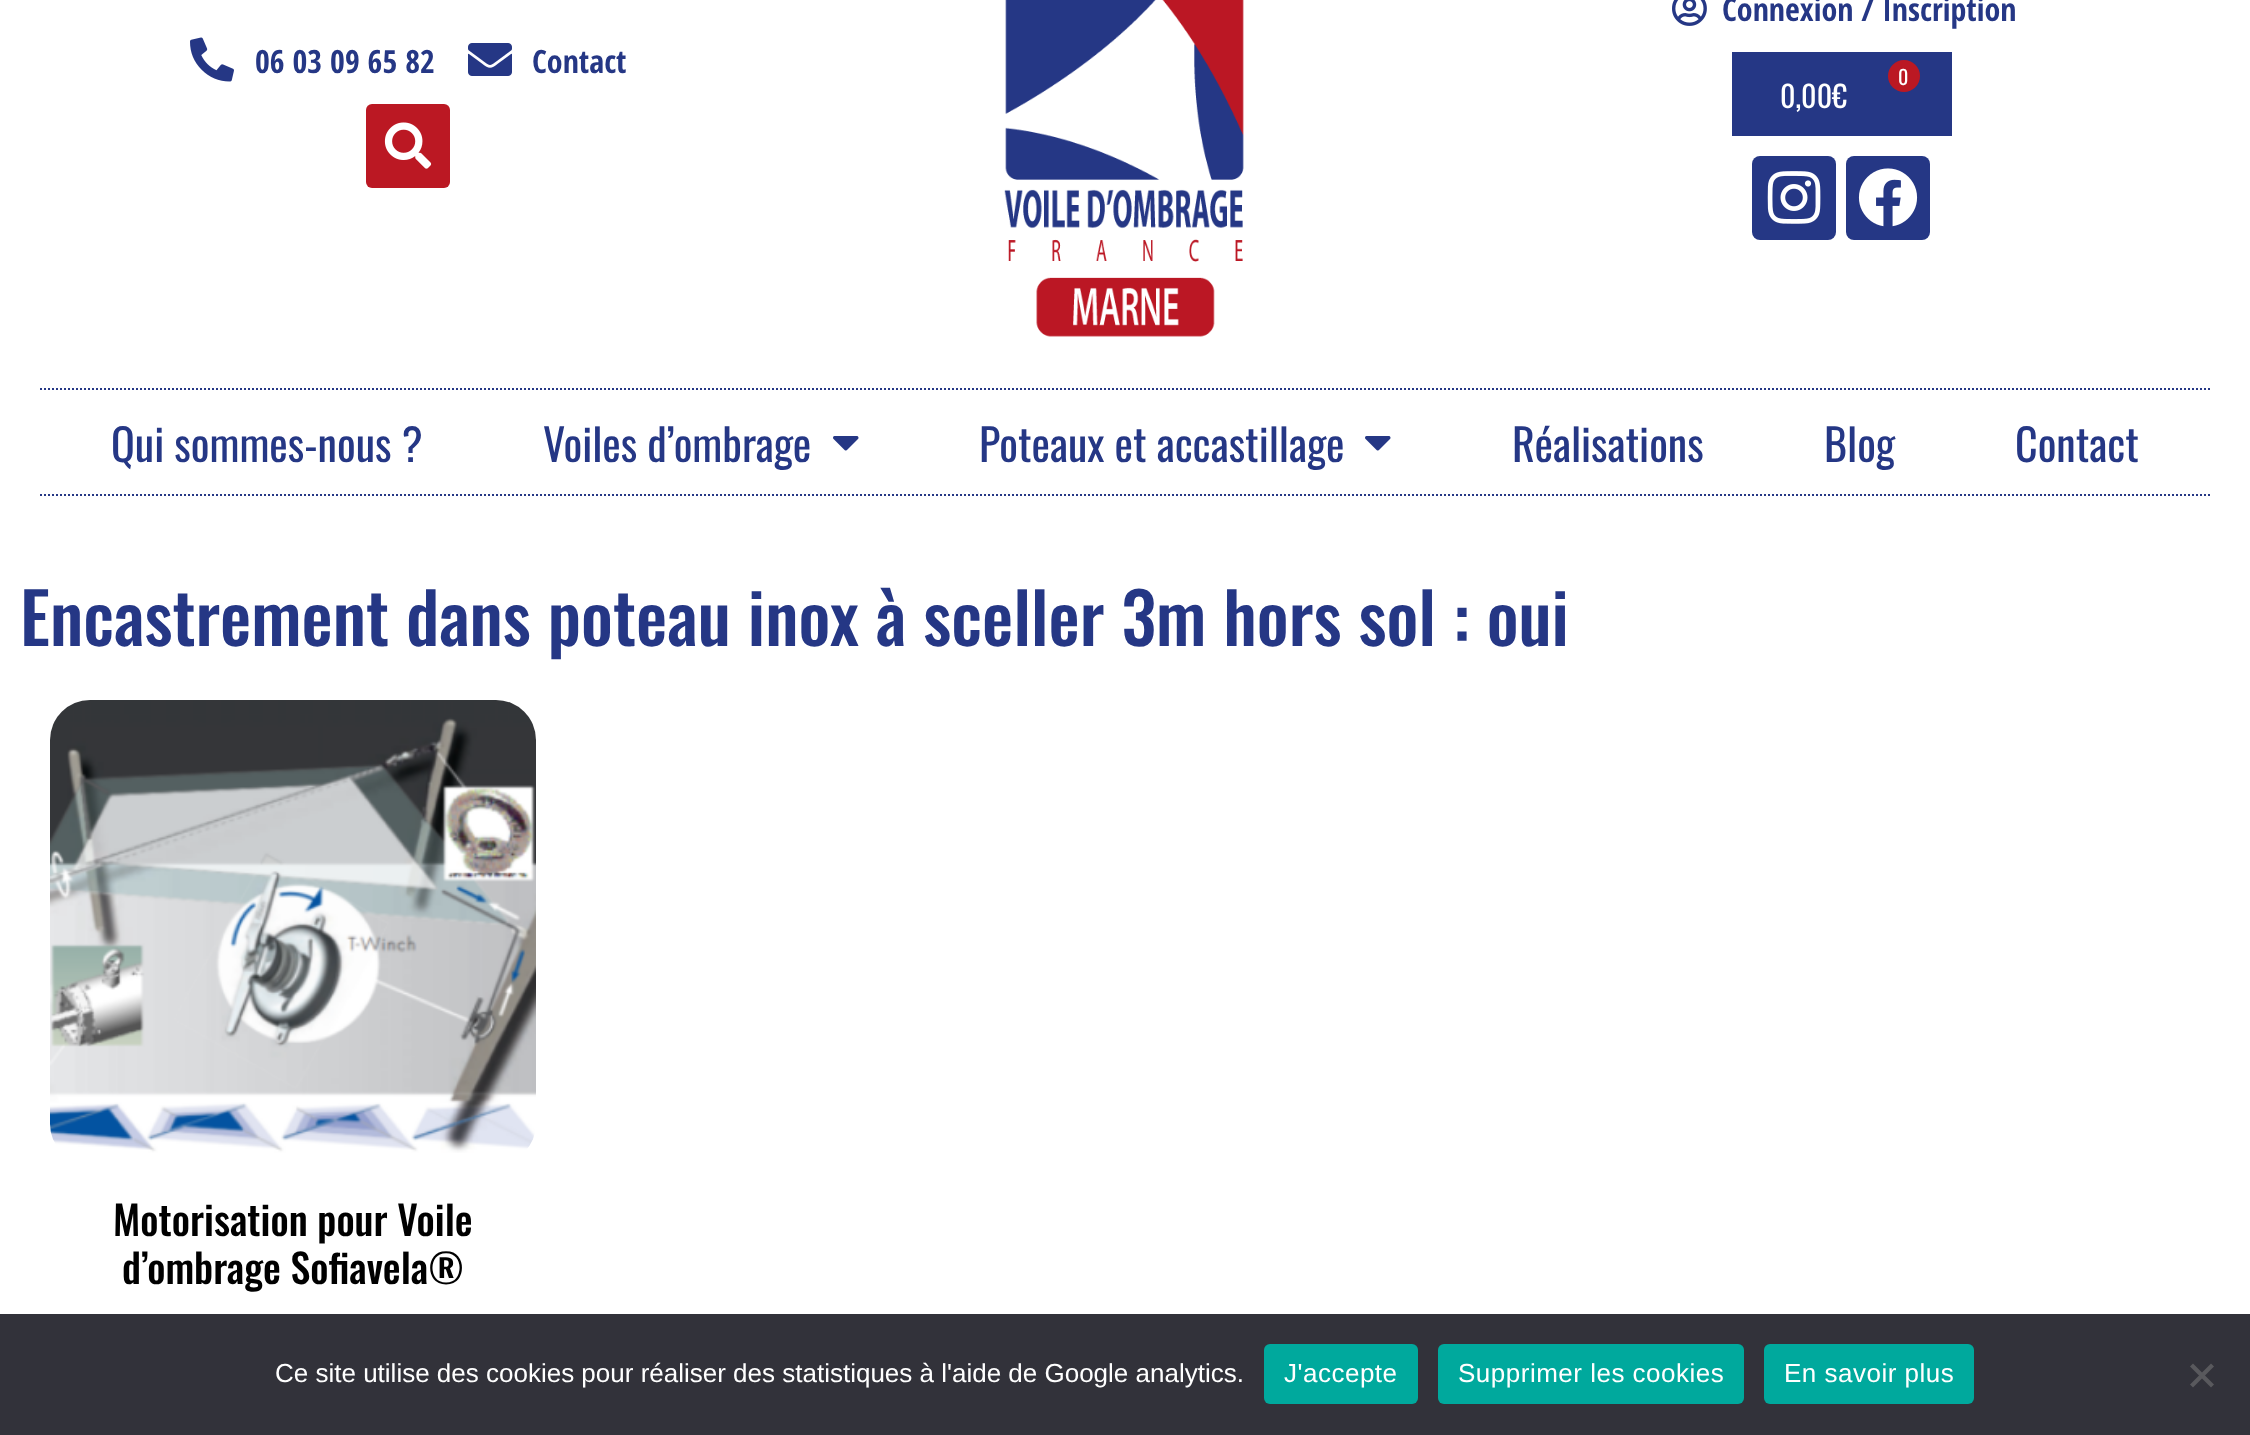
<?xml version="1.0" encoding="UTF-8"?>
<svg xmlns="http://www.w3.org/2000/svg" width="2250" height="1435">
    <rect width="100%" height="100%" fill="#FFFFFF"/>
    <image x="190" y="37" width="44" height="45" href="img_01.png"/>
    <text x="255" y="73" font-family="Open Sans Condensed" font-size="32" font-weight="700" fill="#253785">06 03 09 65 82</text>
    <image x="468" y="43" width="44" height="33" href="img_02.png"/>
    <text x="532" y="73" font-family="Open Sans Condensed" font-size="32" font-weight="700" fill="#253785">Contact</text>
    <rect x="366" y="104" width="84" height="84" rx="6" fill="#BB1823"/>
    <image x="384" y="122" width="48" height="47" href="img_03.png"/>
    <image x="1004" y="0" width="240" height="337" href="img_04.png"/>
    <image x="1672" y="0" width="35" height="26" href="img_05.png"/>
    <text x="1722" y="21" font-family="Open Sans Condensed" font-size="32" font-weight="700" fill="#253785">Connexion / Inscription</text>
    <rect x="1732" y="52" width="220" height="84" fill="#253785"/>
    <circle cx="1904" cy="76" r="16" fill="#BB1823"/>
    <text x="1898" y="85" font-family="Oswald" font-size="20" fill="#FFFFFF">0</text>
    <text x="1780" y="108" font-family="Oswald" font-size="30" fill="#FFFFFF">0,00€</text>
    <rect x="1752" y="156" width="84" height="84" rx="8" fill="#253785"/>
    <image x="1767" y="171" width="54" height="53" href="img_06.png"/>
    <rect x="1846" y="156" width="84" height="84" rx="8" fill="#253785"/>
    <image x="1858" y="168" width="60" height="59" href="img_07.png"/>
    <path d="M 40 389 H 2210" fill="none" stroke="#253785" stroke-width="2" stroke-dasharray="2 2"/>
    <text x="111" y="462" font-family="Oswald" font-size="44" fill="#253785">Qui sommes-nous ?</text>
    <text x="543" y="462" font-family="Oswald" font-size="44" fill="#253785">Voiles d’ombrage</text>
    <image x="833" y="436" width="26" height="15" href="img_08.png"/>
    <text x="979" y="462" font-family="Oswald" font-size="44" fill="#253785">Poteaux et accastillage</text>
    <image x="1365" y="436" width="26" height="15" href="img_08.png"/>
    <text x="1512" y="462" font-family="Oswald" font-size="44" fill="#253785">Réalisations</text>
    <text x="1824" y="462" font-family="Oswald" font-size="44" fill="#253785">Blog</text>
    <text x="2015" y="462" font-family="Oswald" font-size="44" fill="#253785">Contact</text>
    <path d="M 40 495 H 2210" fill="none" stroke="#253785" stroke-width="2" stroke-dasharray="2 2"/>
    <text x="20" y="646" font-family="Oswald" font-size="70" font-weight="500" fill="#253785">Encastrement dans poteau inox à sceller 3m hors sol : oui</text>
    <image x="50" y="700" width="486" height="453" href="img_09.png"/>
    <text x="113" y="1236" font-family="Oswald" font-size="40" font-weight="500" fill="#000000">Motorisation pour Voile</text>
    <text x="122" y="1284" font-family="Oswald" font-size="40" font-weight="500" fill="#000000">d’ombrage Sofiavela®</text>
    <rect x="0" y="1314" width="2250" height="121" fill="#32323A"/>
    <text x="275" y="1382" font-family="Liberation Sans" font-size="26" fill="#FFFFFF">Ce site utilise des cookies pour réaliser des statistiques à l'aide de Google analytics.</text>
    <rect x="1264" y="1344" width="154" height="60" rx="6" fill="#00A99D"/>
    <text x="1284" y="1382" font-family="Liberation Sans" font-size="26" letter-spacing="0.5" fill="#FFFFFF">J'accepte</text>
    <rect x="1438" y="1344" width="306" height="60" rx="6" fill="#00A99D"/>
    <text x="1458" y="1382" font-family="Liberation Sans" font-size="26" letter-spacing="0.5" fill="#FFFFFF">Supprimer les cookies</text>
    <rect x="1764" y="1344" width="210" height="60" rx="6" fill="#00A99D"/>
    <text x="1784" y="1382" font-family="Liberation Sans" font-size="26" letter-spacing="0.5" fill="#FFFFFF">En savoir plus</text>
    <path d="M 2211 1363.5 L 2214 1366.5 L 2193 1387.5 L 2190 1384.5 Z" fill="#59595D"/>
    <path d="M 2190 1366.5 L 2193 1363.5 L 2214 1384.5 L 2211 1387.5 Z" fill="#59595D"/>
</svg>
